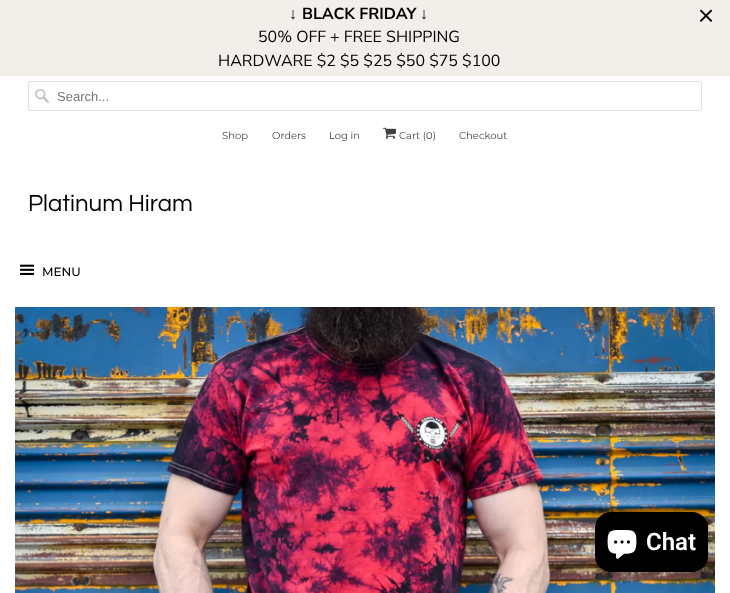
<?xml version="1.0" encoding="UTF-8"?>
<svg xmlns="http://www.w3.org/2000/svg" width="730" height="593">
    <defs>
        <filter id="blur1" x="-50%" y="-200%" width="200%" height="500%"><feGaussianBlur stdDeviation="2.5"/></filter>
    </defs>
    <rect width="100%" height="100%" fill="#FFFFFF"/>
    <rect x="0" y="0" width="730" height="76" fill="#F2EFEA"/>
    <text x="289" y="19" font-family="Liberation Sans" font-size="16" font-weight="700" fill="#000000">↓</text>
    <text x="302" y="19" font-family="Nunito Sans" font-size="16" font-weight="700" fill="#000000">BLACK FRIDAY</text>
    <text x="420" y="19" font-family="Liberation Sans" font-size="16" font-weight="700" fill="#000000">↓</text>
    <text x="258" y="42" font-family="Nunito Sans" font-size="16" fill="#000000">50% OFF + FREE SHIPPING</text>
    <text x="218" y="66" font-family="Nunito Sans" font-size="16" fill="#000000">HARDWARE $2 $5 $25 $50 $75 $100</text>
    <image x="700" y="9" width="12" height="13" href="img_01.png"/>
    <image x="35" y="89" width="14" height="14" href="img_02.png"/>
    <rect x="28.5" y="81.5" width="673" height="29" rx="1.5" fill="none" stroke="#DFDFDF"/>
    <text x="57" y="101" font-family="Liberation Sans" font-size="13" fill="#757575">Search...</text>
    <text x="222" y="139" font-family="Montserrat" font-size="10" fill="#404040">Shop</text>
    <text x="272" y="139" font-family="Montserrat" font-size="10" fill="#404040">Orders</text>
    <text x="329" y="139" font-family="Montserrat" font-size="10" fill="#404040">Log in</text>
    <image x="383" y="127" width="13" height="12" href="img_03.png"/>
    <text x="399" y="139" font-family="Montserrat" font-size="10" fill="#404040">Cart (0)</text>
    <text x="459" y="139" font-family="Montserrat" font-size="10" fill="#404040">Checkout</text>
    <text x="28" y="211" font-family="Questrial" font-size="24" fill="#000000">Platinum Hiram</text>
    <image x="20" y="264" width="14" height="11" href="img_04.png"/>
    <text x="42" y="276" font-family="Montserrat" font-size="12" font-weight="500" fill="#000000">MENU</text>
    <image x="15" y="307" width="700" height="286" href="img_05.png"/>
    <rect x="595" y="512" width="113" height="60" rx="16" fill="#000000" fill-opacity="0.15" filter="url(#blur1)"/>
    <rect x="595" y="512" width="113" height="60" rx="16" fill="#000000"/>
    <image x="607" y="530" width="30" height="29" href="img_06.png"/>
    <text x="646" y="550" font-family="Roboto" font-size="24" font-weight="600" fill="#FFFFFF">Chat</text>
</svg>
